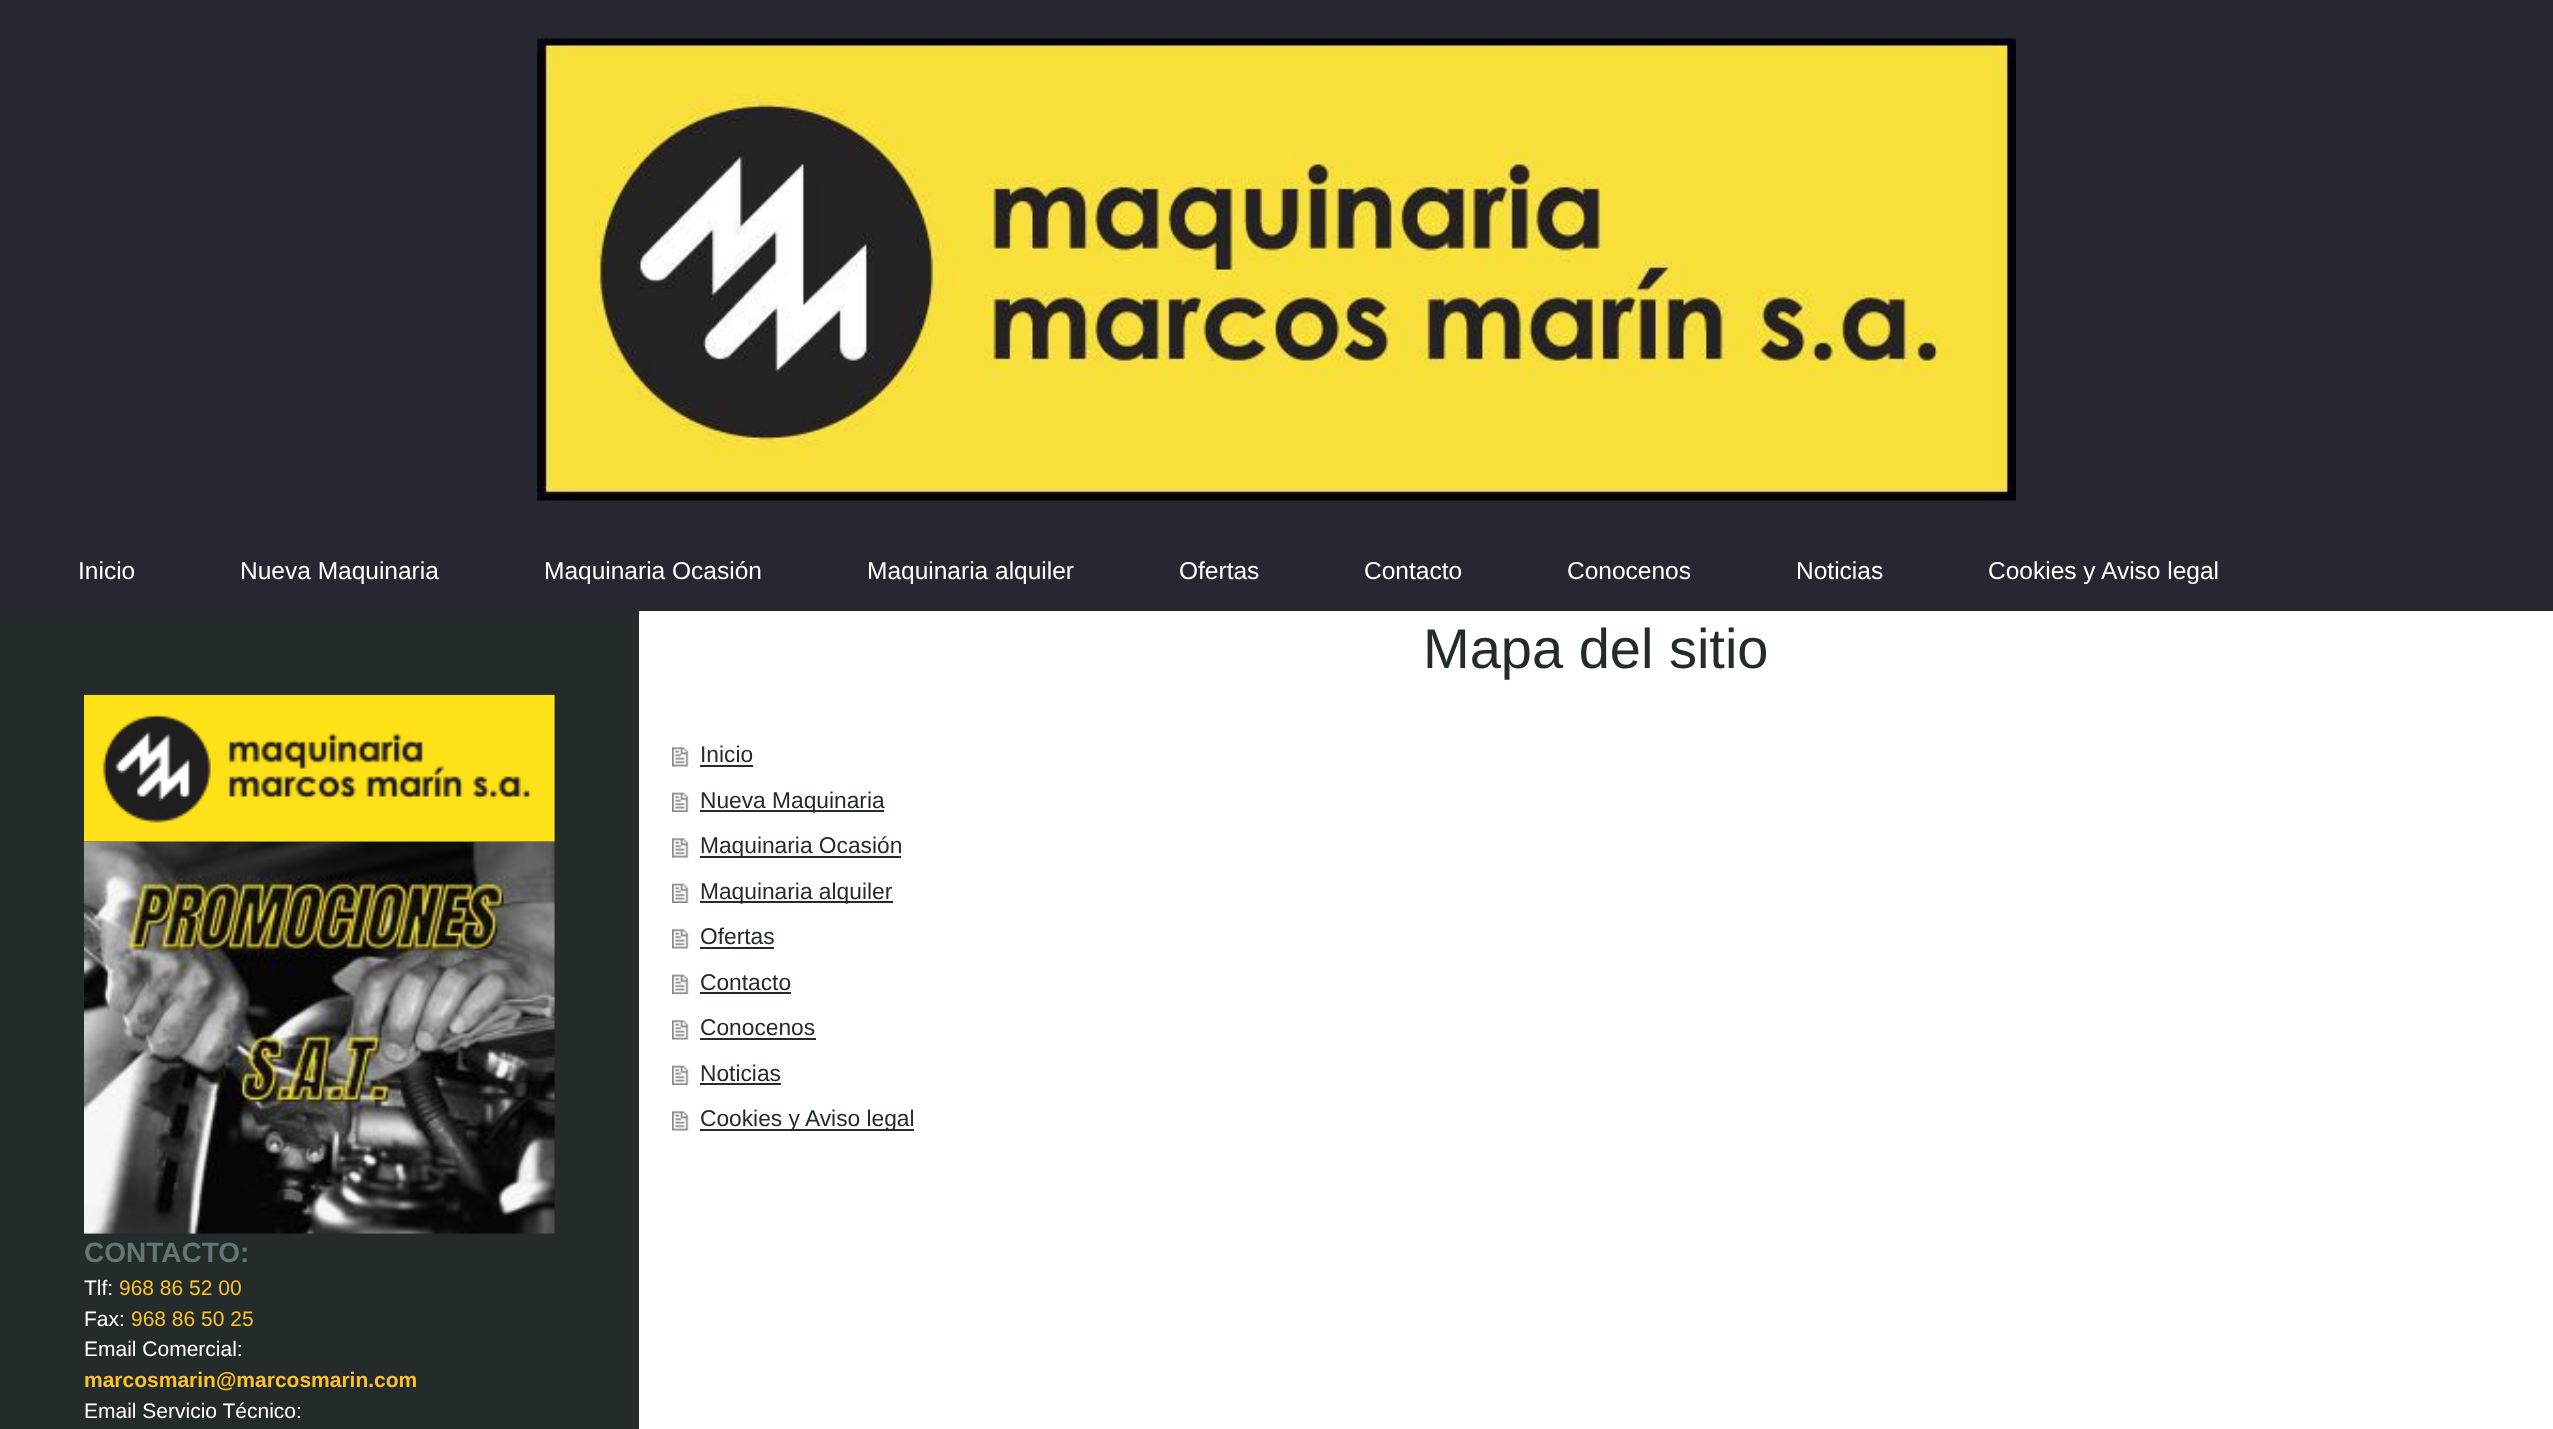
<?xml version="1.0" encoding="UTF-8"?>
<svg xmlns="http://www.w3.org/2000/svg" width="2553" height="1429">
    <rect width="100%" height="100%" fill="#FFFFFF"/>
    <rect x="0" y="0" width="2553" height="611" fill="#262730"/>
    <image x="537" y="38" width="1479" height="463" href="img_01.png"/>
    <text x="78" y="579" font-family="Liberation Sans" font-size="24.5" fill="#FFFFFF">Inicio</text>
    <text x="240" y="579" font-family="Liberation Sans" font-size="24.5" fill="#FFFFFF">Nueva Maquinaria</text>
    <text x="544" y="579" font-family="Liberation Sans" font-size="24.5" fill="#FFFFFF">Maquinaria Ocasión</text>
    <text x="867" y="579" font-family="Liberation Sans" font-size="24.5" fill="#FFFFFF">Maquinaria alquiler</text>
    <text x="1179" y="579" font-family="Liberation Sans" font-size="24.5" fill="#FFFFFF">Ofertas</text>
    <text x="1364" y="579" font-family="Liberation Sans" font-size="24.5" fill="#FFFFFF">Contacto</text>
    <text x="1567" y="579" font-family="Liberation Sans" font-size="24.5" fill="#FFFFFF">Conocenos</text>
    <text x="1796" y="579" font-family="Liberation Sans" font-size="24.5" fill="#FFFFFF">Noticias</text>
    <text x="1988" y="579" font-family="Liberation Sans" font-size="24.5" fill="#FFFFFF">Cookies y Aviso legal</text>
    <text x="1423" y="668" font-family="Liberation Sans" font-size="56" fill="#242B2B">Mapa del sitio</text>
    <image x="672" y="746" width="17" height="21" href="img_02.png"/>
    <text x="700" y="762" font-family="Liberation Sans" font-size="22.75" fill="#242B2B">Inicio</text>
    <rect x="700" y="765" width="53" height="2" fill="#242B2B"/>
    <image x="672" y="792" width="17" height="20" href="img_03.png"/>
    <rect x="700" y="810" width="184" height="2" fill="#242B2B"/>
    <text x="700" y="808" font-family="Liberation Sans" font-size="22.75" fill="#242B2B">Nueva Maquinaria</text>
    <image x="672" y="837" width="17" height="21" href="img_02.png"/>
    <rect x="700" y="856" width="201" height="2" fill="#242B2B"/>
    <text x="700" y="853" font-family="Liberation Sans" font-size="22.75" fill="#242B2B">Maquinaria Ocasión</text>
    <image x="672" y="883" width="17" height="20" href="img_03.png"/>
    <rect x="700" y="901" width="193" height="2" fill="#242B2B"/>
    <text x="700" y="899" font-family="Liberation Sans" font-size="22.75" fill="#242B2B">Maquinaria alquiler</text>
    <image x="672" y="928" width="17" height="21" href="img_02.png"/>
    <text x="700" y="944" font-family="Liberation Sans" font-size="22.75" fill="#242B2B">Ofertas</text>
    <rect x="700" y="947" width="74" height="2" fill="#242B2B"/>
    <image x="672" y="974" width="17" height="20" href="img_03.png"/>
    <text x="700" y="990" font-family="Liberation Sans" font-size="22.75" fill="#242B2B">Contacto</text>
    <rect x="700" y="992" width="91" height="2" fill="#242B2B"/>
    <image x="672" y="1019" width="17" height="21" href="img_02.png"/>
    <text x="700" y="1035" font-family="Liberation Sans" font-size="22.75" fill="#242B2B">Conocenos</text>
    <rect x="700" y="1038" width="116" height="2" fill="#242B2B"/>
    <image x="672" y="1065" width="17" height="20" href="img_03.png"/>
    <text x="700" y="1081" font-family="Liberation Sans" font-size="22.75" fill="#242B2B">Noticias</text>
    <rect x="700" y="1083" width="81" height="2" fill="#242B2B"/>
    <image x="672" y="1110" width="17" height="21" href="img_02.png"/>
    <rect x="700" y="1129" width="214" height="2" fill="#242B2B"/>
    <text x="700" y="1126" font-family="Liberation Sans" font-size="22.75" fill="#242B2B">Cookies y Aviso legal</text>
    <rect x="0" y="611" width="639" height="818" fill="#242B2B"/>
    <image x="84" y="694" width="471" height="148" href="img_04.png"/>
    <image x="84" y="841" width="471" height="393" href="img_05.png"/>
    <text x="84" y="1262" font-family="Liberation Sans" font-size="28" font-weight="700" fill="#637676">CONTACTO:</text>
    <text x="84" y="1295" font-family="Liberation Sans" font-size="21" fill="#FFFFFF">Tlf:</text>
    <text x="119" y="1295" font-family="Liberation Sans" font-size="21" fill="#FBC02E">968 86 52 00</text>
    <text x="84" y="1326" font-family="Liberation Sans" font-size="21" fill="#FFFFFF">Fax:</text>
    <text x="131" y="1326" font-family="Liberation Sans" font-size="21" fill="#FBC02E">968 86 50 25</text>
    <text x="84" y="1356" font-family="Liberation Sans" font-size="21" fill="#FFFFFF">Email Comercial:</text>
    <text x="84" y="1387" font-family="Liberation Sans" font-size="21" font-weight="700" fill="#FBC02E">marcosmarin@marcosmarin.com</text>
    <text x="84" y="1418" font-family="Liberation Sans" font-size="21" fill="#FFFFFF">Email Servicio Técnico:</text>
</svg>
